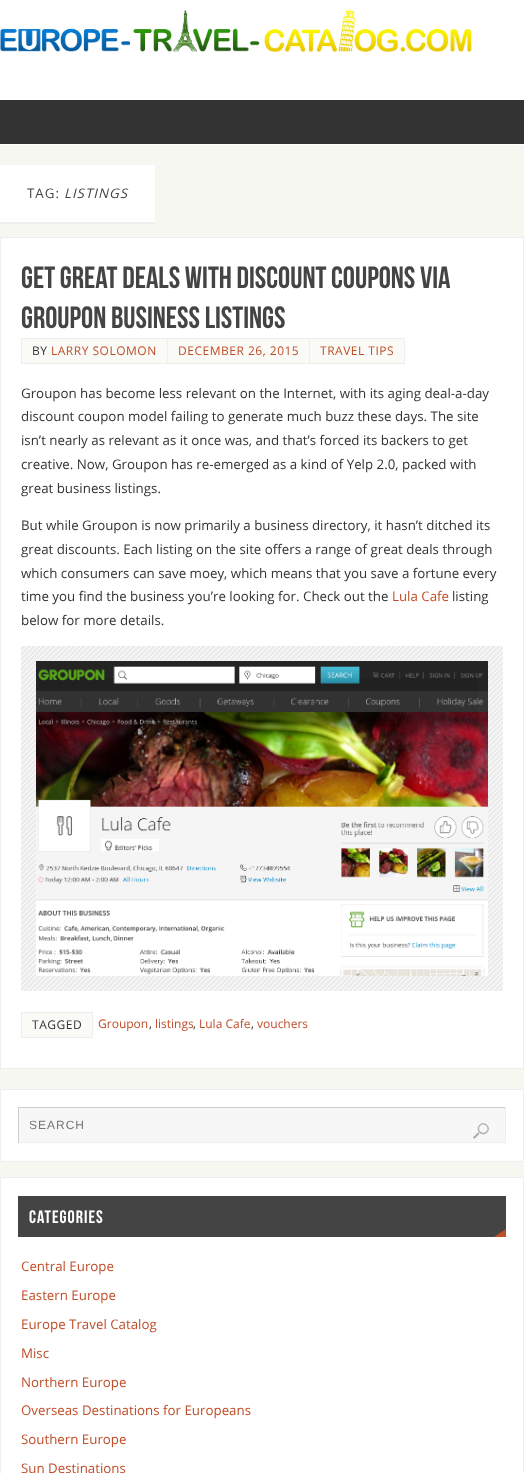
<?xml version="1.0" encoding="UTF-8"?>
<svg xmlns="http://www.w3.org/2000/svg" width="524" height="1473">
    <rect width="100%" height="100%" fill="#F7F7F2"/>
    <rect x="0" y="0" width="524" height="145" fill="#FFFFFF"/>
    <image x="0" y="10" width="472" height="42" href="img_01.png"/>
    <rect x="0" y="100" width="524" height="44" fill="#333333"/>
    <rect x="0" y="165" width="155" height="57" fill="#FFFFFF"/>
    <rect x="0" y="222" width="155" height="2" fill="#EEEEEE"/>
    <text x="27" y="198" font-family="Open Sans" font-size="13.3" letter-spacing="1" fill="#444444">TAG:</text>
    <text x="64" y="198" font-family="Open Sans" font-size="13.3" font-style="italic" letter-spacing="1" fill="#444444">LISTINGS</text>
    <rect x="0.5" y="237.5" width="523" height="831" fill="#FFFFFF" stroke="#EEEEEE"/>
    <text font-family="Bebas Neue" font-size="30.6" fill="#444444">
        <tspan x="21" y="288">Get great deals with discount coupons via</tspan>
        <tspan x="21" y="328">Groupon business listings</tspan>
    </text>
    <rect x="21.5" y="338.5" width="146" height="25" fill="#FAFAF7" stroke="#EEEEEE"/>
    <text x="32" y="355" font-family="Open Sans" font-size="12" letter-spacing="0.5" fill="#333333">BY</text>
    <text x="51" y="355" font-family="Open Sans" font-size="12" letter-spacing="0.5" fill="#BF4D28">LARRY SOLOMON</text>
    <rect x="167.5" y="338.5" width="142" height="25" fill="#FAFAF7" stroke="#EEEEEE"/>
    <text x="178" y="355" font-family="Open Sans" font-size="12" letter-spacing="0.5" fill="#BF4D28">DECEMBER 26, 2015</text>
    <rect x="309.5" y="338.5" width="95" height="25" fill="#FAFAF7" stroke="#EEEEEE"/>
    <text x="320" y="355" font-family="Open Sans" font-size="12" letter-spacing="0.5" fill="#BF4D28">TRAVEL TIPS</text>
    <text font-family="Open Sans" font-size="13.3" fill="#333333">
        <tspan x="21" y="398">Groupon has become less relevant on the Internet, with its aging deal-a-day</tspan>
        <tspan x="21" y="421">discount coupon model failing to generate much buzz these days. The site</tspan>
        <tspan x="21" y="445">isn’t nearly as relevant as it once was, and that’s forced its backers to get</tspan>
        <tspan x="21" y="469">creative. Now, Groupon has re-emerged as a kind of Yelp 2.0, packed with</tspan>
        <tspan x="21" y="493">great business listings.</tspan>
    </text>
    <text font-family="Open Sans" font-size="13.3" fill="#333333">
        <tspan x="21" y="530">But while Groupon is now primarily a business directory, it hasn’t ditched its</tspan>
        <tspan x="21" y="554">great discounts. Each listing on the site offers a range of great deals through</tspan>
        <tspan x="21" y="578">which consumers can save moey, which means that you save a fortune every</tspan>
        <tspan x="21" y="601">time you find the business you’re looking for. Check out the</tspan>
    </text>
    <text x="392" y="601" font-family="Open Sans" font-size="13.3" fill="#BF4D28">Lula Cafe</text>
    <text x="452" y="601" font-family="Open Sans" font-size="13.3" fill="#333333">listing</text>
    <text x="21" y="625" font-family="Open Sans" font-size="13.3" fill="#333333">below for more details.</text>
    <image x="21" y="646" width="482" height="345" href="img_02.png"/>
    <image x="39" y="678" width="439" height="252" href="img_03.png"/>
    <rect x="21.5" y="1012.5" width="71" height="25" fill="#FAFAF7" stroke="#EEEEEE"/>
    <text x="32" y="1029" font-family="Open Sans" font-size="12" letter-spacing="0.5" fill="#333333">TAGGED</text>
    <text x="98" y="1028" font-family="Open Sans" font-size="12" fill="#BF4D28">Groupon</text>
    <text x="149" y="1028" font-family="Open Sans" font-size="12" fill="#333333">,</text>
    <text x="155" y="1028" font-family="Open Sans" font-size="12" fill="#BF4D28">listings</text>
    <text x="193" y="1028" font-family="Open Sans" font-size="12" fill="#333333">,</text>
    <text x="199" y="1028" font-family="Open Sans" font-size="12" fill="#BF4D28">Lula Cafe</text>
    <text x="251" y="1028" font-family="Open Sans" font-size="12" fill="#333333">,</text>
    <text x="257" y="1028" font-family="Open Sans" font-size="12" fill="#BF4D28">vouchers</text>
    <rect x="0.5" y="1089.5" width="523" height="72" fill="#FFFFFF" stroke="#EEEEEE"/>
    <rect x="19" y="1108" width="486" height="34" fill="#F7F7F7"/>
    <rect x="18" y="1107" width="488" height="1" fill="#CCCCCC"/>
    <rect x="505" y="1107" width="1" height="36" fill="#EEEEEE"/>
    <rect x="18" y="1142" width="488" height="1" fill="#EEEEEE"/>
    <rect x="18" y="1107" width="1" height="36" fill="#CCCCCC"/>
    <text x="29" y="1129" font-family="Liberation Sans" font-size="12" letter-spacing="1" fill="#757575">SEARCH</text>
    <image x="473" y="1123" width="16" height="16" href="img_04.png"/>
    <rect x="0.5" y="1177.5" width="523" height="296" fill="#FFFFFF" stroke="#EEEEEE"/>
    <rect x="18" y="1196" width="488" height="41" fill="#444444"/>
    <text x="29" y="1223" font-family="Bebas Neue" font-size="18" letter-spacing="1" fill="#FFFFFF">CATEGORIES</text>
    <path d="M 506 1237 H 494 L 506 1229 Z" fill="#BF4D28"/>
    <text x="21" y="1271" font-family="Open Sans" font-size="13.3" fill="#BF4D28">Central Europe</text>
    <text x="21" y="1300" font-family="Open Sans" font-size="13.3" fill="#BF4D28">Eastern Europe</text>
    <text x="21" y="1329" font-family="Open Sans" font-size="13.3" fill="#BF4D28">Europe Travel Catalog</text>
    <text x="21" y="1358" font-family="Open Sans" font-size="13.3" fill="#BF4D28">Misc</text>
    <text x="21" y="1387" font-family="Open Sans" font-size="13.3" fill="#BF4D28">Northern Europe</text>
    <text x="21" y="1415" font-family="Open Sans" font-size="13.3" fill="#BF4D28">Overseas Destinations for Europeans</text>
    <text x="21" y="1444" font-family="Open Sans" font-size="13.3" fill="#BF4D28">Southern Europe</text>
    <text x="21" y="1473" font-family="Open Sans" font-size="13.3" fill="#BF4D28">Sun Destinations</text>
</svg>
